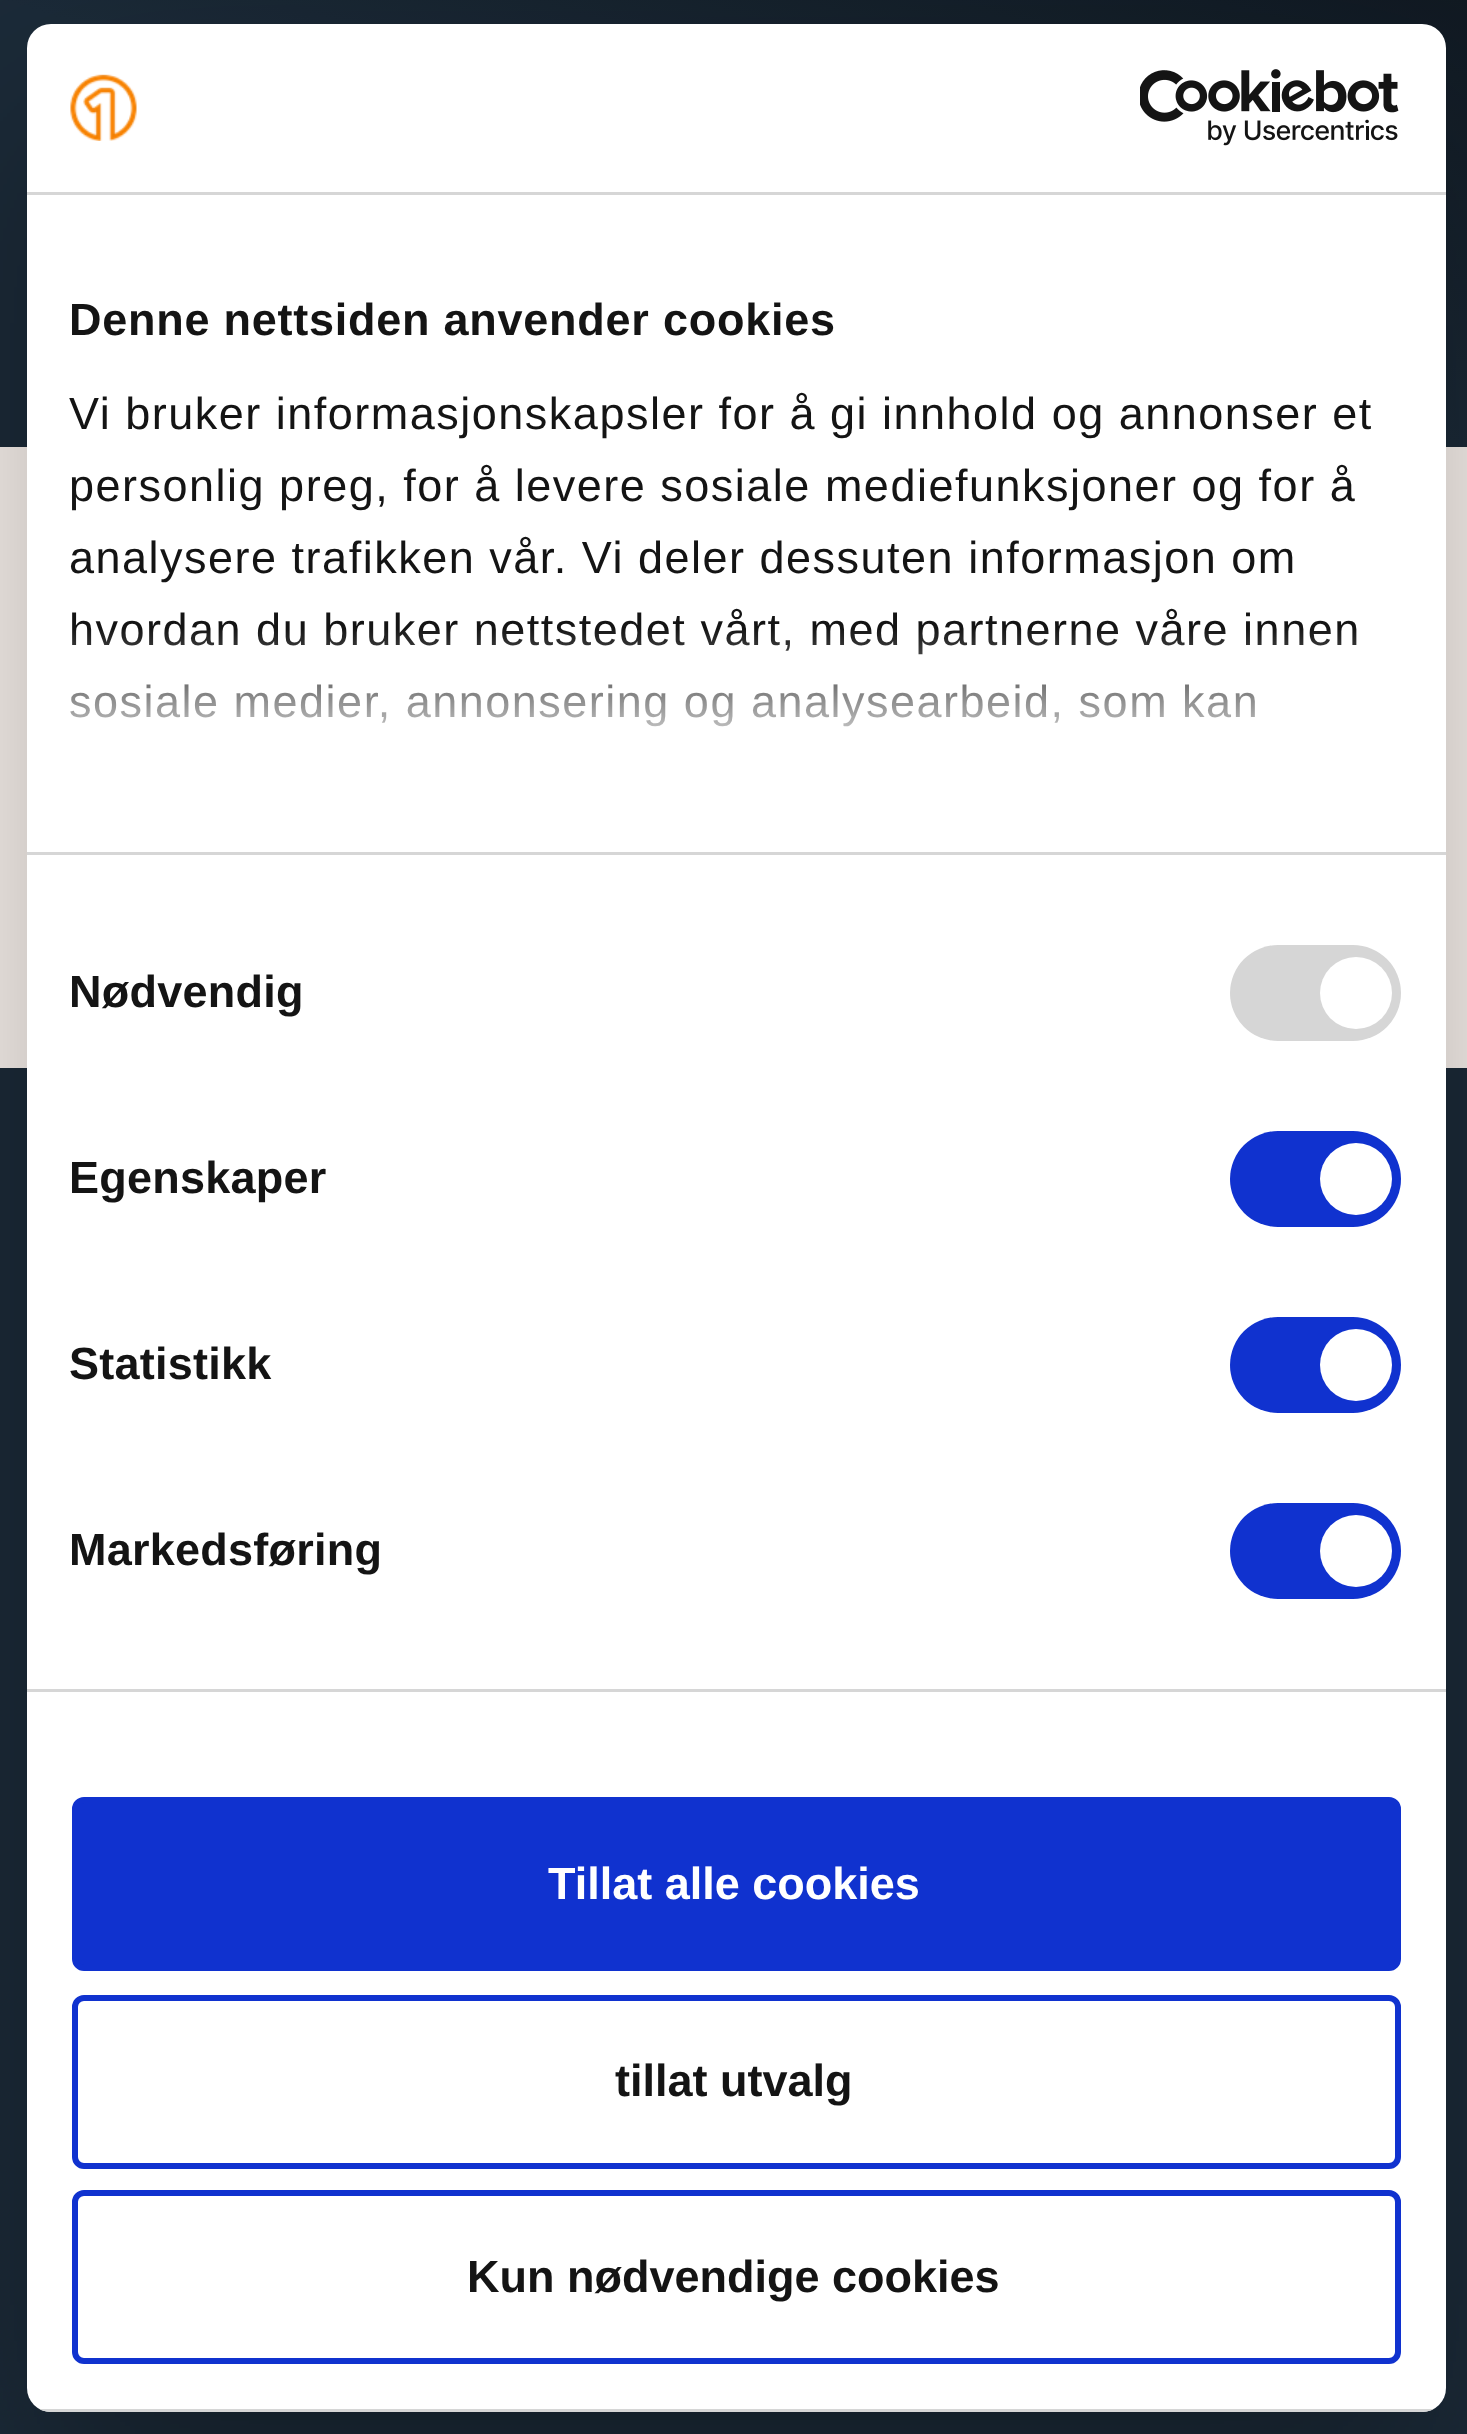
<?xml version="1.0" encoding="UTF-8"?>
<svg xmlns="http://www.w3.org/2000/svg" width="1467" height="2434">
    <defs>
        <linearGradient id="g1" gradientUnits="userSpaceOnUse" x1="609" y1="633" x2="858" y2="-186"><stop offset="0.5" stop-color="#1B2A38"/><stop offset="1" stop-color="#101922"/></linearGradient>
        <clipPath id="clip1"><path d="M 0 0 H 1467 V 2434 H 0 Z M 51 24 H 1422 C 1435.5 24 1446 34.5 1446 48 V 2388 C 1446 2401.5 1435.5 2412 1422 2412 H 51 C 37.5 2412 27 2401.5 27 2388 V 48 C 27 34.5 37.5 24 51 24 Z" clip-rule="evenodd"/></clipPath>
        <filter id="blur1" x="-50%" y="-200%" width="200%" height="500%"><feGaussianBlur stdDeviation="102"/></filter>
        <linearGradient id="g2" gradientUnits="userSpaceOnUse" x1="716" y1="852" x2="716" y2="627"><stop offset="0" stop-color="#FFFFFF"/><stop offset="0.5" stop-color="#FFFFFF" stop-opacity="0.8"/><stop offset="1" stop-color="#FFFFFF" stop-opacity="0"/></linearGradient>
        <clipPath id="clip2"><rect x="27" y="24" width="1419" height="2388" rx="24"/></clipPath>
    </defs>
    <rect width="100%" height="100%" fill="#FCF5F0"/>
    <rect x="0" y="0" width="1467" height="447" fill="url(#g1)"/>
    <rect x="0" y="1068" width="1467" height="1366" fill="#1B2A38"/>
    <g clip-path="url(#clip1)">
        <rect x="27" y="120" width="1419" height="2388" rx="24" fill="#000000" fill-opacity="0.3" filter="url(#blur1)"/>
    </g>
    <rect x="27" y="24" width="1419" height="2388" rx="24" fill="#FFFFFF"/>
    <rect x="27" y="192" width="1419" height="3" fill="#D6D6D6"/>
    <image x="70" y="74" width="67" height="67" href="img_01.png"/>
    <image x="1140" y="69" width="259" height="77" href="img_02.png"/>
    <rect x="27" y="852" width="1419" height="3" fill="#D6D6D6"/>
    <text x="69" y="335" font-family="Liberation Sans" font-size="45" font-weight="700" letter-spacing="0.75" fill="#141414">Denne nettsiden anvender cookies</text>
    <text font-family="Liberation Sans" font-size="45" letter-spacing="1.5" fill="#141414">
        <tspan x="69" y="429">Vi bruker informasjonskapsler for å gi innhold og annonser et</tspan>
        <tspan x="69" y="501">personlig preg, for å levere sosiale mediefunksjoner og for å</tspan>
        <tspan x="69" y="573">analysere trafikken vår. Vi deler dessuten informasjon om</tspan>
        <tspan x="69" y="645">hvordan du bruker nettstedet vårt, med partnerne våre innen</tspan>
        <tspan x="69" y="717">sosiale medier, annonsering og analysearbeid, som kan</tspan>
    </text>
    <rect x="70" y="630" width="1287" height="97" fill="url(#g2)"/>
    <rect x="27" y="1689" width="1419" height="3" fill="#D6D6D6"/>
    <text x="69" y="1007" font-family="Liberation Sans" font-size="45" font-weight="700" letter-spacing="0.25" fill="#141414">Nødvendig</text>
    <rect x="1230" y="945" width="171" height="96" rx="48" fill="#D6D6D6"/>
    <circle cx="1356" cy="993" r="36" fill="#FFFFFF"/>
    <text x="69" y="1193" font-family="Liberation Sans" font-size="45" font-weight="700" letter-spacing="0.25" fill="#141414">Egenskaper</text>
    <rect x="1230" y="1131" width="171" height="96" rx="48" fill="#1032CF"/>
    <circle cx="1356" cy="1179" r="36" fill="#FFFFFF"/>
    <text x="69" y="1379" font-family="Liberation Sans" font-size="45" font-weight="700" letter-spacing="0.25" fill="#141414">Statistikk</text>
    <rect x="1230" y="1317" width="171" height="96" rx="48" fill="#1032CF"/>
    <circle cx="1356" cy="1365" r="36" fill="#FFFFFF"/>
    <text x="69" y="1565" font-family="Liberation Sans" font-size="45" font-weight="700" letter-spacing="0.25" fill="#141414">Markedsføring</text>
    <rect x="1230" y="1503" width="171" height="96" rx="48" fill="#1032CF"/>
    <circle cx="1356" cy="1551" r="36" fill="#FFFFFF"/>
    <g clip-path="url(#clip2)">
        <rect x="39" y="2409" width="1395" height="3" fill="#D6D6D6"/>
    </g>
    <rect x="75" y="1800" width="1323" height="168" rx="9" fill="#1032CF" stroke="#1032CF" stroke-width="6"/>
    <text x="548" y="1899" font-family="Liberation Sans" font-size="45" font-weight="700" fill="#FFFFFF">Tillat alle cookies</text>
    <rect x="75" y="1998" width="1323" height="168" rx="9" fill="none" stroke="#1032CF" stroke-width="6"/>
    <text x="615" y="2096" font-family="Liberation Sans" font-size="45" font-weight="700" fill="#141414">tillat utvalg</text>
    <rect x="75" y="2193" width="1323" height="168" rx="9" fill="none" stroke="#1032CF" stroke-width="6"/>
    <text x="467" y="2292" font-family="Liberation Sans" font-size="45" font-weight="700" fill="#141414">Kun nødvendige cookies</text>
</svg>
